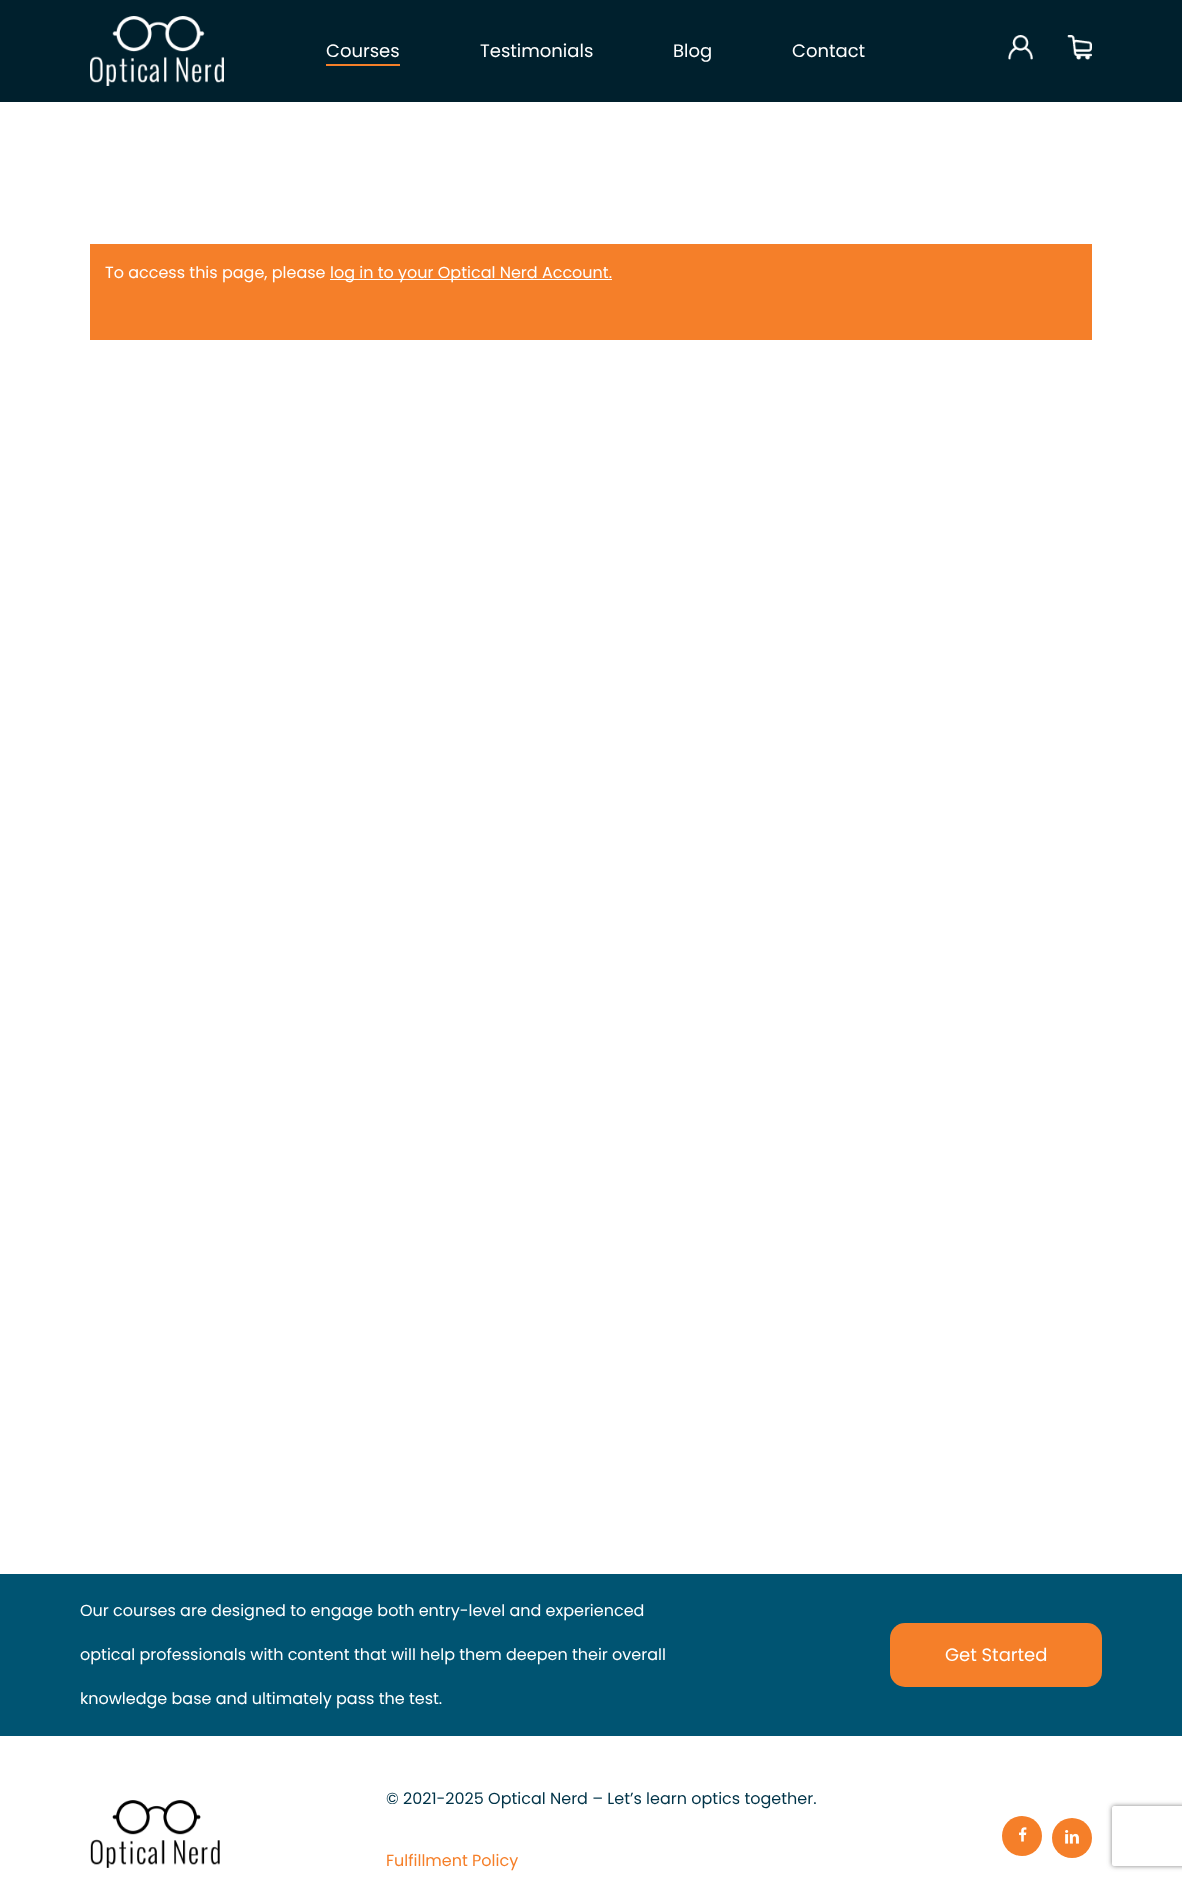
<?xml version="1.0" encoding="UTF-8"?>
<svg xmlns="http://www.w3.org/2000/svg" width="1182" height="1880">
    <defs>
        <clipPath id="clip1"><path d="M 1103 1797 H 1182 V 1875 H 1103 Z M 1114 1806 H 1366 C 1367 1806 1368 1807 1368 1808 V 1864 C 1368 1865 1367 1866 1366 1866 H 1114 C 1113 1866 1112 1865 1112 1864 V 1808 C 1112 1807 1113 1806 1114 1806 Z" clip-rule="evenodd"/></clipPath>
        <filter id="blur1" x="-50%" y="-200%" width="200%" height="500%"><feGaussianBlur stdDeviation="2.5"/></filter>
    </defs>
    <rect width="100%" height="100%" fill="#005472"/>
    <rect x="0" y="0" width="1182" height="102" fill="#00202D"/>
    <image x="90" y="16" width="134" height="70" href="img_01.png"/>
    <text x="326" y="57" font-family="Poppins" font-size="18" fill="#FFFFFF">Courses</text>
    <rect x="326" y="64" width="74" height="2" fill="#F57F29"/>
    <text x="480" y="57" font-family="Poppins" font-size="18" fill="#FFFFFF">Testimonials</text>
    <text x="673" y="57" font-family="Poppins" font-size="18" fill="#FFFFFF">Blog</text>
    <text x="792" y="57" font-family="Poppins" font-size="18" fill="#FFFFFF">Contact</text>
    <image x="1008" y="35" width="25" height="25" href="img_02.png"/>
    <image x="1067" y="35" width="25" height="25" href="img_03.png"/>
    <rect x="0" y="102" width="1182" height="1472" fill="#FFFFFF"/>
    <rect x="90" y="244" width="1002" height="96" fill="#F57F29"/>
    <text x="105" y="278" font-family="Poppins" font-size="16" fill="#FFFFFF">To access this page, please</text>
    <rect x="330" y="279" width="282" height="1" fill="#FFFFFF"/>
    <text x="330" y="278" font-family="Poppins" font-size="16" fill="#FFFFFF">log in to your Optical Nerd Account.</text>
    <text x="80" y="1616" font-family="Poppins" font-size="16" fill="#FFFFFF">Our courses are designed to engage both entry-level and experienced</text>
    <text x="80" y="1660" font-family="Poppins" font-size="16" fill="#FFFFFF">optical professionals with content that will help them deepen their overall</text>
    <text x="80" y="1704" font-family="Poppins" font-size="16" fill="#FFFFFF">knowledge base and ultimately pass the test.</text>
    <rect x="890" y="1623" width="212" height="64" rx="15" fill="#F57F29"/>
    <text x="945" y="1661" font-family="Poppins" font-size="18" fill="#FFFFFF">Get Started</text>
    <rect x="0" y="1736" width="1182" height="144" fill="#FFFFFF"/>
    <image x="90" y="1800" width="130" height="68" href="img_04.png"/>
    <text x="386" y="1804" font-family="Poppins" font-size="16" fill="#003348">© 2021-2025 Optical Nerd – Let’s learn optics together.</text>
    <text x="386" y="1866" font-family="Poppins" font-size="16" fill="#F57F29">Fulfillment Policy</text>
    <circle cx="1022" cy="1836" r="20" fill="#F57F29"/>
    <image x="1019" y="1827" width="8" height="15" href="img_05.png"/>
    <circle cx="1072" cy="1838" r="20" fill="#F57F29"/>
    <image x="1065" y="1830" width="14" height="14" href="img_06.png"/>
    <g clip-path="url(#clip1)">
        <rect x="1112" y="1806" width="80" height="60" rx="2" fill="#808080" filter="url(#blur1)"/>
    </g>
</svg>
